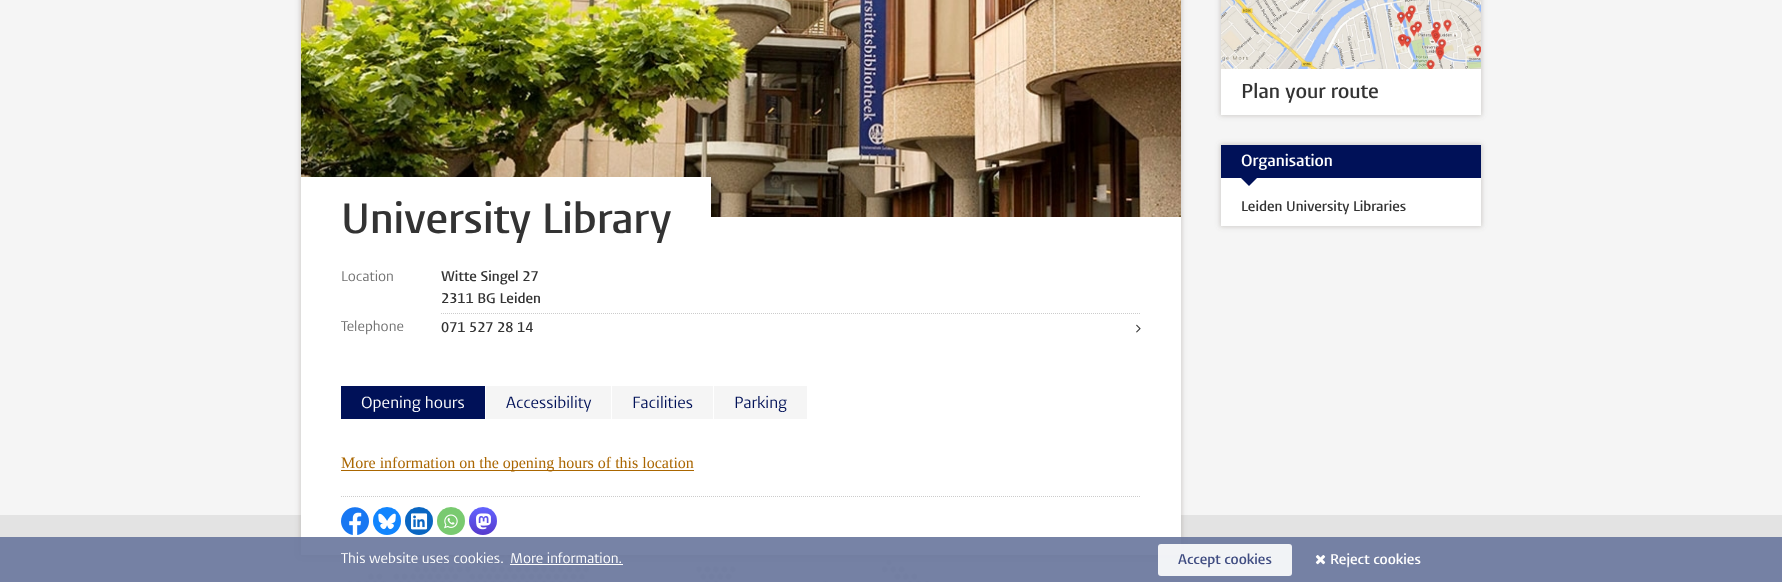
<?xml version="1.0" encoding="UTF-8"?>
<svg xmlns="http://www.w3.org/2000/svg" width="1782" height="582">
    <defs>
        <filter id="blur1" x="-50%" y="-200%" width="200%" height="500%"><feGaussianBlur stdDeviation="2.5"/></filter>
        <linearGradient id="g1" gradientUnits="userSpaceOnUse" x1="483" y1="507" x2="483" y2="535"><stop offset="0" stop-color="#6364FF"/><stop offset="1" stop-color="#563ACC"/></linearGradient>
    </defs>
    <rect width="100%" height="100%" fill="#F5F5F5"/>
    <rect x="1220" y="-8" width="262" height="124" fill="#786E64" fill-opacity="0.3" filter="url(#blur1)"/>
    <rect x="1221" y="69" width="260" height="46" fill="#FFFFFF"/>
    <image x="1221" y="0" width="260" height="69" href="img_01.png"/>
    <text x="1241" y="98" font-family="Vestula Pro" font-size="20" font-weight="600" fill="#333333">Plan your route</text>
    <rect x="1220" y="144" width="262" height="83" fill="#786E64" fill-opacity="0.3" filter="url(#blur1)"/>
    <rect x="1221" y="178" width="260" height="48" fill="#FFFFFF"/>
    <rect x="1221" y="145" width="260" height="33" fill="#001158"/>
    <text x="1241" y="166" font-family="Vestula Pro" font-size="16" font-weight="600" fill="#FFFFFF">Organisation</text>
    <path d="M 1241 178 H 1257 L 1249 186 Z" fill="#001158"/>
    <text x="1241" y="211" font-family="Vestula Pro" font-size="14" font-weight="600" fill="#333333">Leiden University Libraries</text>
    <rect x="0" y="515" width="1782" height="67" fill="#E3E3E3"/>
    <image x="348" y="555" width="581" height="27" href="img_09.png"/>
    <rect x="300" y="-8" width="882" height="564" fill="#786E64" fill-opacity="0.3" filter="url(#blur1)"/>
    <rect x="301" y="217" width="880" height="338" fill="#FFFFFF"/>
    <image x="301" y="0" width="880" height="217" href="img_02.png"/>
    <rect x="301" y="177" width="410" height="40" fill="#FFFFFF"/>
    <text x="341" y="233" font-family="Vestula Pro" font-size="42" font-weight="600" fill="#333333">University Library</text>
    <text x="341" y="281" font-family="Vestula Pro" font-size="14" fill="#707070">Location</text>
    <text font-family="Vestula Pro" font-size="14" font-weight="600" fill="#333333">
        <tspan x="441" y="281">Witte Singel 27</tspan>
        <tspan x="441" y="303">2311 BG Leiden</tspan>
    </text>
    <text x="341" y="331" font-family="Vestula Pro" font-size="14" fill="#707070">Telephone</text>
    <path d="M 441 313.5 H 1141" fill="none" stroke="#CCCCCC" stroke-dasharray="1 1"/>
    <text x="441" y="332" font-family="Vestula Pro" font-size="14" font-weight="600" fill="#333333">071 527 28 14</text>
    <image x="1136" y="324" width="5" height="9" href="img_03.png"/>
    <rect x="341" y="386" width="144" height="33" fill="#001158"/>
    <text x="361" y="408" font-family="Vestula Pro" font-size="16" fill="#FFFFFF">Opening hours</text>
    <rect x="486" y="386" width="125" height="33" fill="#F5F5F5"/>
    <text x="506" y="408" font-family="Vestula Pro" font-size="16" fill="#001158">Accessibility</text>
    <rect x="612" y="386" width="101" height="33" fill="#F5F5F5"/>
    <text x="632" y="408" font-family="Vestula Pro" font-size="16" fill="#001158">Facilities</text>
    <rect x="714" y="386" width="93" height="33" fill="#F5F5F5"/>
    <text x="734" y="408" font-family="Vestula Pro" font-size="16" fill="#001158">Parking</text>
    <rect x="341" y="470" width="353" height="1" fill="#AA6600"/>
    <text x="341" y="468" font-family="Liberation Serif" font-size="16" fill="#AA6600">More information on the opening hours of this location</text>
    <path d="M 341 496.5 H 1141" fill="none" stroke="#CCCCCC" stroke-dasharray="1 1"/>
    <image x="341" y="507" width="28" height="28" href="img_04.png"/>
    <circle cx="387" cy="521" r="14" fill="#1185FE"/>
    <image x="378" y="513" width="18" height="17" href="img_05.png"/>
    <circle cx="419" cy="521" r="14" fill="#0A66C2"/>
    <image x="411" y="513" width="17" height="17" href="img_06.png"/>
    <circle cx="451" cy="521" r="14" fill="#79CA70"/>
    <image x="444" y="514" width="14" height="15" href="img_07.png"/>
    <circle cx="483" cy="521" r="14" fill="url(#g1)"/>
    <image x="476" y="513" width="15" height="17" href="img_08.png"/>
    <rect x="0" y="537" width="1782" height="45" fill="#68769C" fill-opacity="0.9"/>
    <text x="341" y="563" font-family="Vestula Pro" font-size="14" fill="#FFFFFF">This website uses cookies.</text>
    <text x="510" y="563" font-family="Vestula Pro" font-size="14" fill="#FFFFFF">More information.</text>
    <rect x="510" y="564" width="113" height="1" fill="#FFFFFF"/>
    <rect x="1158" y="544" width="134" height="32" rx="3" fill="#FFFFFF" fill-opacity="0.9"/>
    <text x="1178" y="564" font-family="Vestula Pro" font-size="14" font-weight="600" fill="#404D82">Accept cookies</text>
    <image x="1315" y="555" width="11" height="10" href="img_10.png"/>
    <text x="1330" y="564" font-family="Vestula Pro" font-size="14" font-weight="600" fill="#FFFFFF">Reject cookies</text>
</svg>
